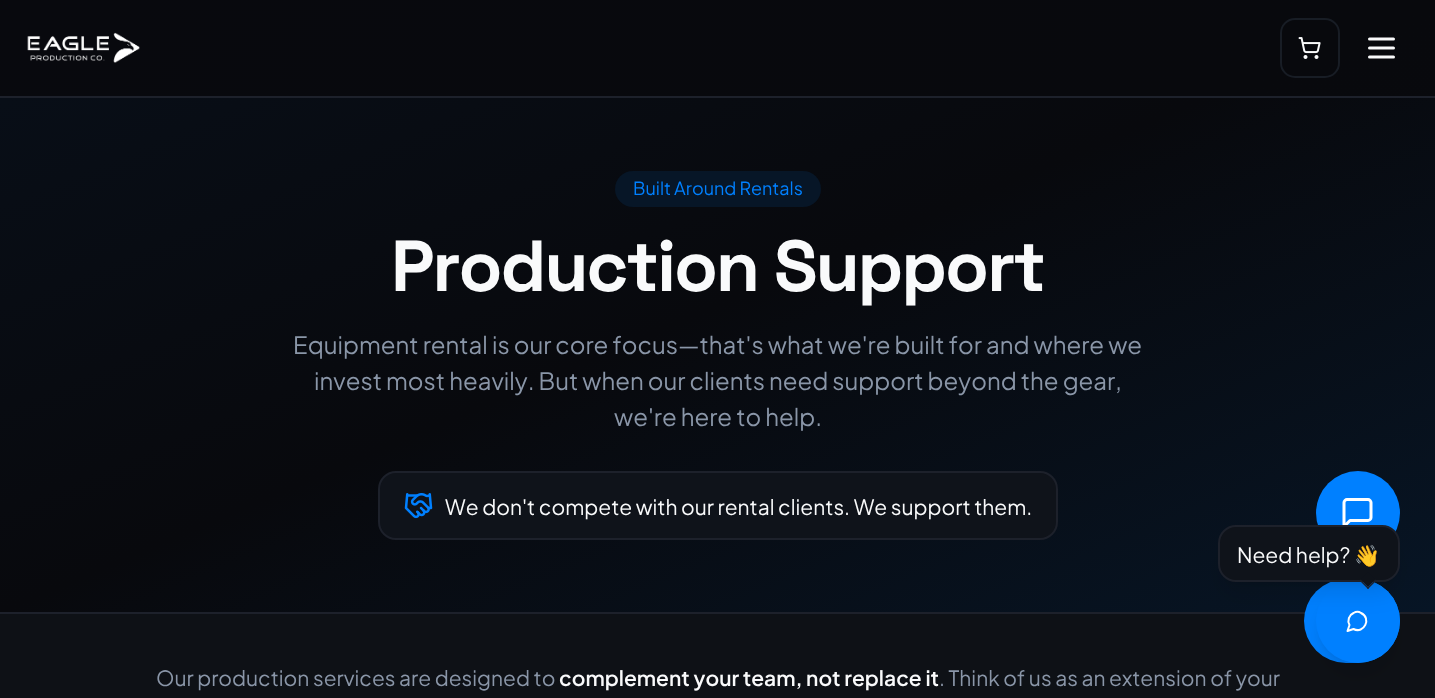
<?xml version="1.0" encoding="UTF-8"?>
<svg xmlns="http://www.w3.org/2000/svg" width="1435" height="698">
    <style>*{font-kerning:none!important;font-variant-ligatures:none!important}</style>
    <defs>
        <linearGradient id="g1" gradientUnits="userSpaceOnUse" x1="497" y1="-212" x2="939" y2="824"><stop offset="0" stop-color="#08090E"/><stop offset="0.5" stop-color="#08090D"/><stop offset="1" stop-color="#080A0E"/></linearGradient>
        <linearGradient id="g2" gradientUnits="userSpaceOnUse" x1="497" y1="-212" x2="939" y2="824"><stop offset="0" stop-color="#080F19"/><stop offset="0.5" stop-color="#08090D"/><stop offset="1" stop-color="#071525"/></linearGradient>
        <filter id="blur1" x="-50%" y="-200%" width="200%" height="500%"><feGaussianBlur stdDeviation="4.5"/></filter>
        <filter id="blur2" x="-50%" y="-200%" width="200%" height="500%"><feGaussianBlur stdDeviation="11"/></filter>
    </defs>
    <rect width="100%" height="100%" fill="#0E1116"/>
    <rect x="0" y="96" width="1435" height="2" fill="#1D212B"/>
    <rect x="0" y="0" width="1435" height="96" fill="url(#g1)"/>
    <image x="27" y="32" width="113" height="31" href="img_01.png"/>
    <rect x="1281" y="19" width="58" height="58" rx="14" fill="none" stroke="#181D25" stroke-width="2"/>
    <image x="1298" y="37" width="23" height="22" href="img_02.png"/>
    <path d="M 1369.5 48 H 1393.5 M 1369.5 39 H 1393.5 M 1369.5 57 H 1393.5" fill="none" stroke="#F9FAFB" stroke-width="3" stroke-linecap="round" stroke-linejoin="round"/>
    <rect x="0" y="98" width="1435" height="514" fill="url(#g2)"/>
    <rect x="615" y="171" width="206" height="36" rx="18" fill="#071627"/>
    <text x="633" y="195" font-family="Plus Jakarta Sans" font-size="18" fill="#0080FF">Built Around Rentals</text>
    <text x="391" y="291" font-family="Space Grotesk" font-size="72" font-weight="700" letter-spacing="-2.2" fill="#F9FAFB">Production Support</text>
    <text x="293" y="354" font-family="Plus Jakarta Sans" font-size="24" fill="#8A96A8">Equipment rental is our core focus—that's what we're built for and where we</text>
    <text x="314" y="390" font-family="Plus Jakarta Sans" font-size="24" fill="#8A96A8">invest most heavily. But when our clients need support beyond the gear,</text>
    <text x="614" y="426" font-family="Plus Jakarta Sans" font-size="24" fill="#8A96A8">we're here to help.</text>
    <rect x="379" y="472" width="678" height="67" rx="17" fill="#0F131A" stroke="#1D212B" stroke-width="2"/>
    <image x="404" y="493" width="29" height="26" href="img_03.png"/>
    <text x="445" y="515" font-family="Plus Jakarta Sans" font-size="21" fill="#F9FAFB">We don't compete with our rental clients. We support them.</text>
    <rect x="0" y="612" width="1435" height="2" fill="#1D212B"/>
    <text x="156" y="686" font-family="Plus Jakarta Sans" font-size="21" fill="#8A96A8">Our production services are designed to</text>
    <text x="559" y="686" font-family="Plus Jakarta Sans" font-size="21" font-weight="600" fill="#F9FAFB">complement your team, not replace it</text>
    <text x="939" y="686" font-family="Plus Jakarta Sans" font-size="21" fill="#8A96A8">. Think of us as an extension of your</text>
    <circle cx="1358" cy="513" r="42" fill="#0080FF"/>
    <path d="M 1371 517.5 C 1371 519 1369.5 520.5 1368 520.5 H 1350 L 1344 526.5 V 502.5 C 1344 501 1345.5 499.5 1347 499.5 H 1368 C 1369.5 499.5 1371 501 1371 502.5 Z" fill="none" stroke="#FFFFFF" stroke-width="3" stroke-linecap="round" stroke-linejoin="round"/>
    <rect x="1304" y="579" width="96" height="84" rx="42" fill="#0080FF"/>
    <rect x="1322" y="591" width="72" height="72" rx="36" fill="#000000" fill-opacity="0.1" filter="url(#blur1)"/>
    <rect x="1320" y="599" width="75" height="75" rx="37.5" fill="#000000" fill-opacity="0.1" filter="url(#blur2)"/>
    <circle cx="1358" cy="621" r="42" fill="#0080FF"/>
    <rect x="1224" y="537" width="170" height="45" rx="12" fill="#000000" fill-opacity="0.1" filter="url(#blur1)"/>
    <path d="M 1353.5 629 C 1364 634.5 1372 618 1361 613 C 1359 611.5 1356 611.5 1353.5 613 C 1349 615 1347 620.5 1349.5 625 L 1347.5 631 Z" fill="none" stroke="#FFFFFF" stroke-width="2" stroke-linecap="round" stroke-linejoin="round"/>
    <rect x="1223" y="545" width="172" height="48" rx="14" fill="#000000" fill-opacity="0.1" filter="url(#blur2)"/>
    <rect x="1219" y="526" width="180" height="55" rx="17" fill="#0F131A" stroke="#1D212B" stroke-width="2"/>
    <text x="1237" y="563" font-family="Plus Jakarta Sans" font-size="21" fill="#F9FAFB">Need help?</text>
    <text x="1354" y="563" font-family="Noto Color Emoji" font-size="21" fill="#F9FAFB">👋</text>
    <path d="M 1368 572 L 1375.5 579.5 L 1368 587 L 1360.5 579.5 Z" fill="#0F131A"/>
    <path d="M 1375.5 579.5 L 1376.5 580.5 L 1368 589 L 1367 588 Z" fill="#1D212B"/>
    <path d="M 1360.5 579.5 L 1369 588 L 1368 589 L 1359.5 580.5 Z" fill="#1D212B"/>
</svg>
